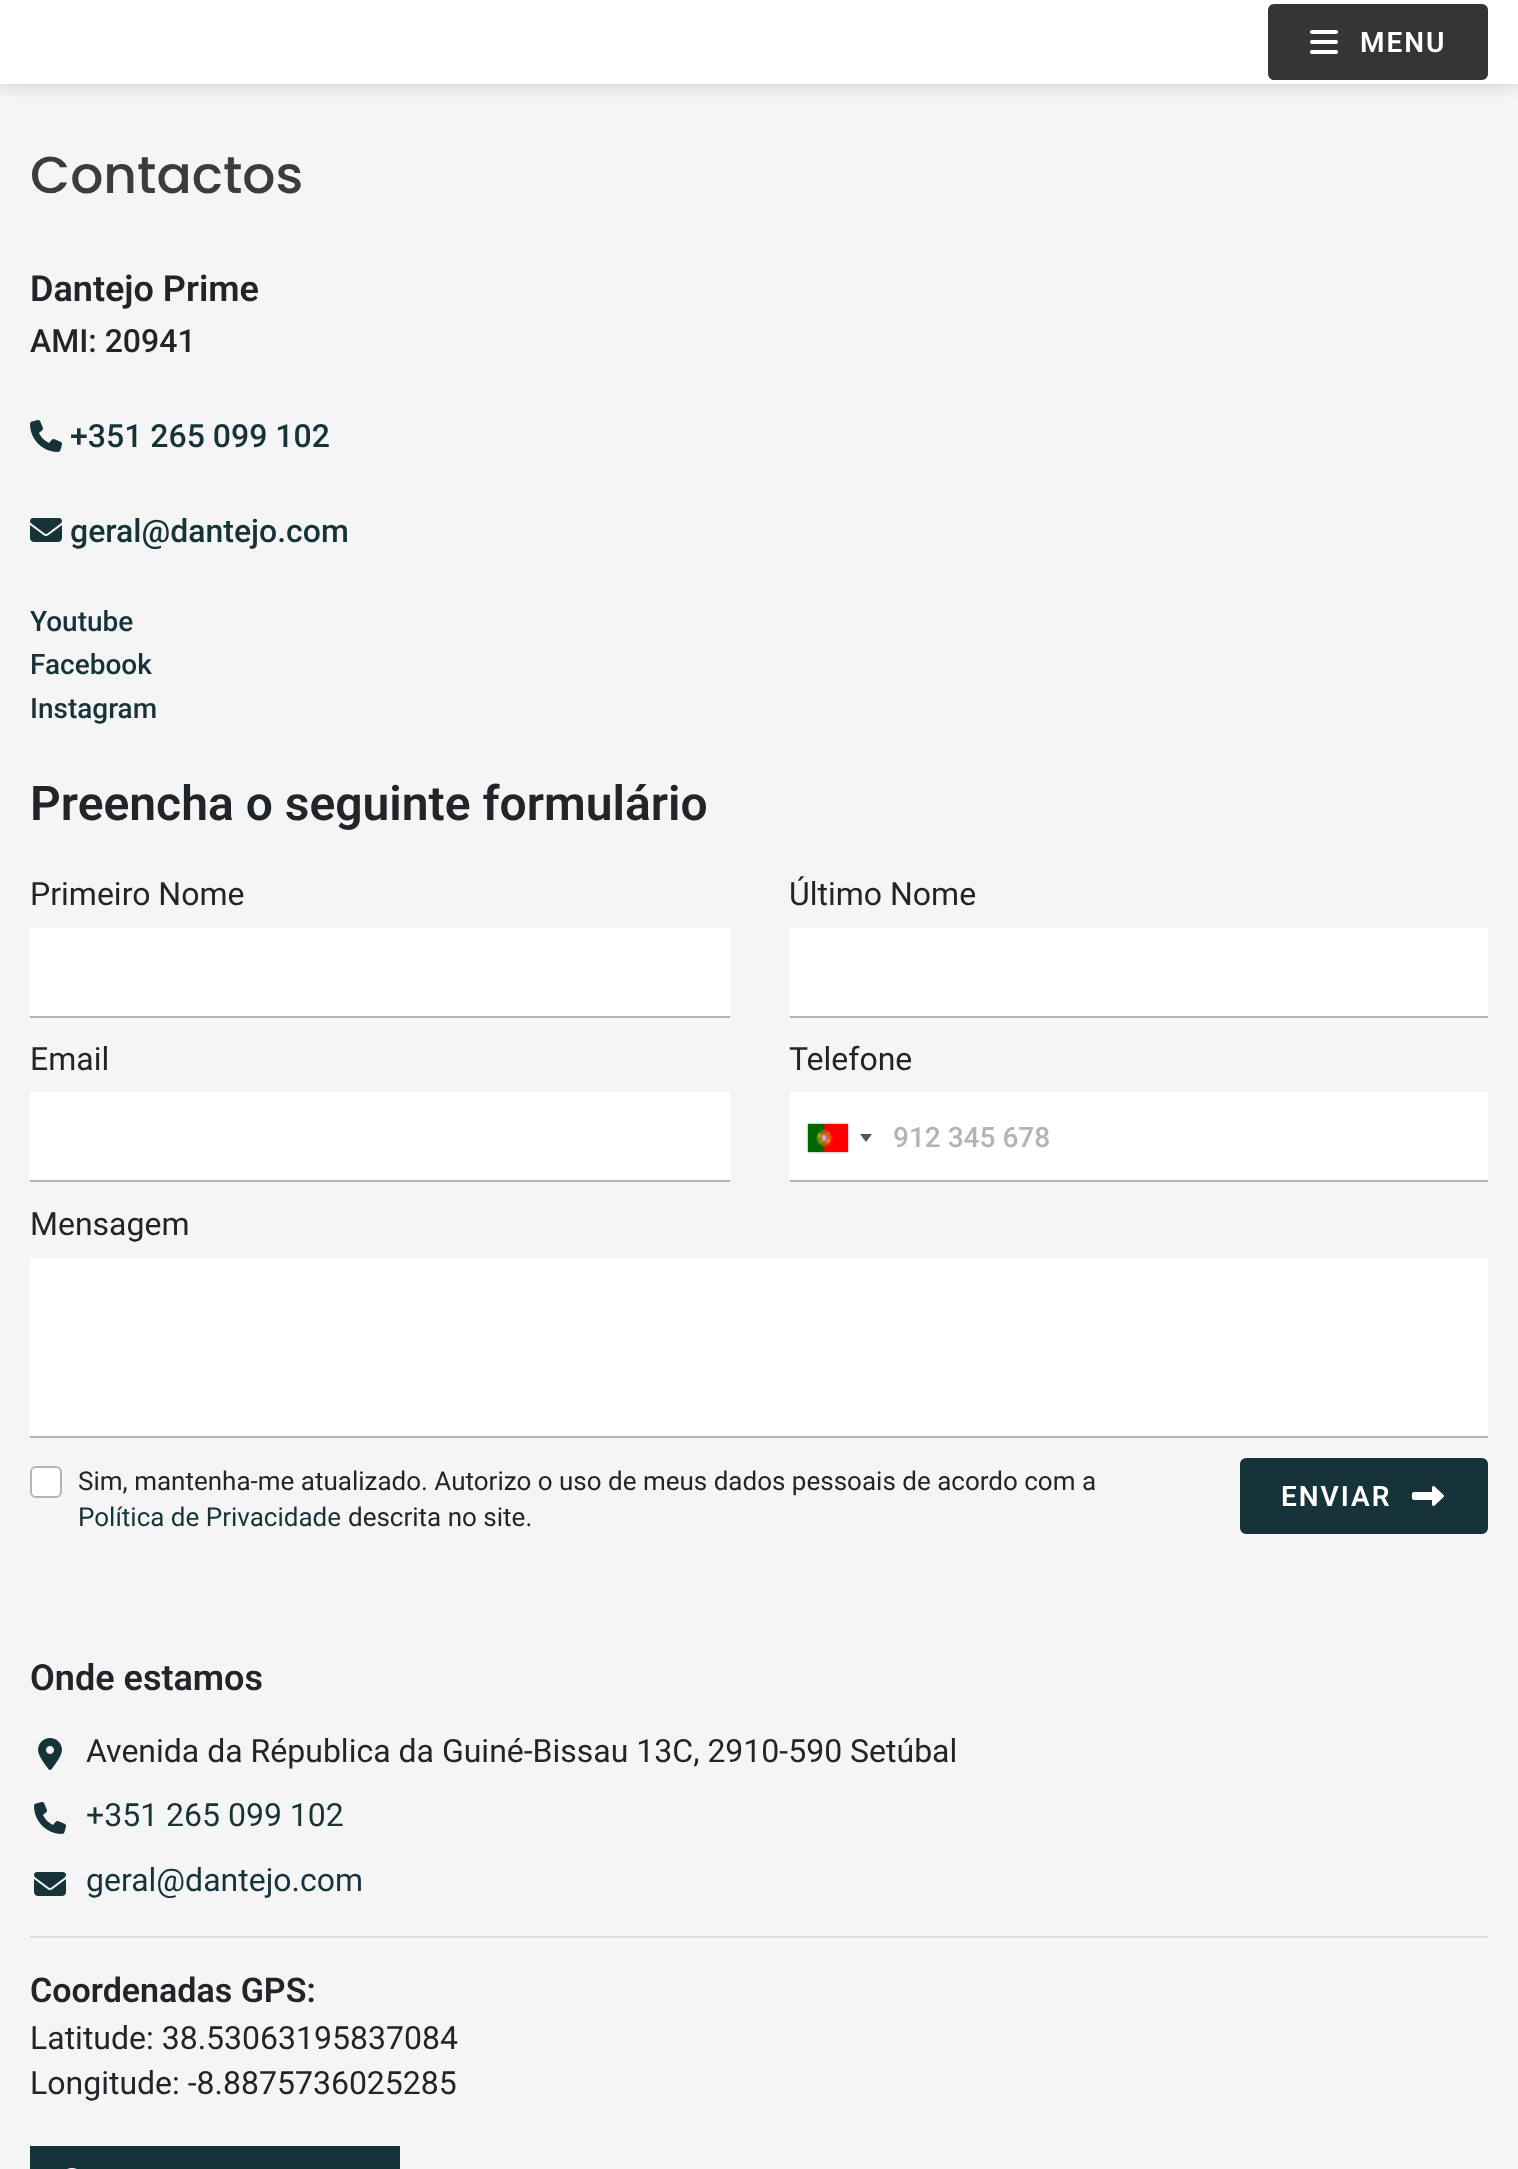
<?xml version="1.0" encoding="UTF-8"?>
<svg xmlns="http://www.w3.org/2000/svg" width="1518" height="2169">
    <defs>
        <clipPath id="clip1"><rect x="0" y="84" width="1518" height="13"/></clipPath>
        <filter id="blur1" x="-50%" y="-200%" width="200%" height="500%"><feGaussianBlur stdDeviation="12"/></filter>
        <filter id="blur2" x="-50%" y="-200%" width="200%" height="500%"><feGaussianBlur stdDeviation="1"/></filter>
    </defs>
    <rect width="100%" height="100%" fill="#F5F5F5"/>
    <rect x="0" y="0" width="1518" height="84" fill="#FFFFFF"/>
    <g clip-path="url(#clip1)">
        <rect x="0" y="-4" width="1518" height="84" fill="#000000" fill-opacity="0.26" filter="url(#blur1)"/>
    </g>
    <rect x="1268" y="4" width="220" height="76" rx="6" fill="#353535"/>
    <image x="1310" y="30" width="28" height="24" href="img_01.png"/>
    <text x="1360" y="52" font-family="Roboto" font-size="28" font-weight="600" letter-spacing="2" fill="#FFFFFF">MENU</text>
    <text x="30" y="193" font-family="Poppins" font-size="52" font-weight="500" fill="#3C3C3B">Contactos</text>
    <text x="30" y="301" font-family="Roboto" font-size="36" font-weight="600" fill="#212529">Dantejo Prime</text>
    <text x="30" y="352" font-family="Roboto" font-size="32" font-weight="500" fill="#212529">AMI: 20941</text>
    <image x="30" y="420" width="32" height="32" href="img_02.png"/>
    <text x="70" y="447" font-family="Roboto" font-size="32" font-weight="500" fill="#163339">+351 265 099 102</text>
    <image x="30" y="518" width="32" height="24" href="img_03.png"/>
    <text x="70" y="542" font-family="Roboto" font-size="32" font-weight="500" fill="#163339">geral@dantejo.com</text>
    <text font-family="Roboto" font-size="28" font-weight="500" fill="#163339">
        <tspan x="30" y="631">Youtube</tspan>
        <tspan x="30" y="674">Facebook</tspan>
        <tspan x="30" y="718">Instagram</tspan>
    </text>
    <text x="30" y="820" font-family="Roboto" font-size="48" font-weight="600" fill="#212529">Preencha o seguinte formulário</text>
    <text x="30" y="905" font-family="Roboto" font-size="32" fill="#212529">Primeiro Nome</text>
    <rect x="30" y="928" width="700" height="88" fill="#FFFFFF"/>
    <rect x="30" y="1016" width="700" height="2" fill="#B4B4B4"/>
    <text x="789" y="905" font-family="Roboto" font-size="32" fill="#212529">Último Nome</text>
    <rect x="790" y="928" width="698" height="88" fill="#FFFFFF"/>
    <rect x="790" y="1016" width="698" height="2" fill="#B4B4B4"/>
    <text x="30" y="1070" font-family="Roboto" font-size="32" fill="#212529">Email</text>
    <rect x="30" y="1092" width="700" height="88" fill="#FFFFFF"/>
    <rect x="30" y="1180" width="700" height="2" fill="#B4B4B4"/>
    <text x="789" y="1070" font-family="Roboto" font-size="32" fill="#212529">Telefone</text>
    <rect x="790" y="1092" width="698" height="88" fill="#FFFFFF"/>
    <rect x="808" y="1124" width="40" height="28" fill="#888888" filter="url(#blur2)"/>
    <image x="808" y="1124" width="40" height="28" href="img_04.png"/>
    <path d="M 860 1134 H 872 L 866 1142 Z" fill="#555555"/>
    <rect x="790" y="1180" width="698" height="2" fill="#B4B4B4"/>
    <text x="893" y="1147" font-family="Roboto" font-size="28" font-weight="500" fill="#B4B4B4">912 345 678</text>
    <text x="30" y="1235" font-family="Roboto" font-size="32" fill="#212529">Mensagem</text>
    <rect x="30" y="1258" width="1458" height="178" fill="#FFFFFF"/>
    <rect x="30" y="1436" width="1458" height="2" fill="#B4B4B4"/>
    <rect x="31" y="1467" width="30" height="30" rx="5" fill="#FFFFFF" stroke="#B4B4B4" stroke-width="2"/>
    <text x="78" y="1490" font-family="Roboto" font-size="26" fill="#212529">Sim, mantenha-me atualizado. Autorizo o uso de meus dados pessoais de acordo com a</text>
    <text x="78" y="1526" font-family="Roboto" font-size="26" fill="#163339">Política de Privacidade</text>
    <text x="348" y="1526" font-family="Roboto" font-size="26" fill="#212529">descrita no site.</text>
    <rect x="1241" y="1459" width="246" height="74" rx="5" fill="#163339" stroke="#163339" stroke-width="2"/>
    <text x="1281" y="1506" font-family="Roboto" font-size="28" font-weight="600" letter-spacing="2" fill="#FFFFFF">ENVIAR</text>
    <image x="1412" y="1486" width="32" height="20" href="img_05.png"/>
    <text x="30" y="1690" font-family="Roboto" font-size="36" font-weight="600" fill="#212529">Onde estamos</text>
    <image x="38" y="1738" width="24" height="32" href="img_06.png"/>
    <text x="86" y="1762" font-family="Roboto" font-size="32" fill="#212529">Avenida da Républica da Guiné-Bissau 13C, 2910-590 Setúbal</text>
    <image x="34" y="1802" width="32" height="32" href="img_02.png"/>
    <text x="86" y="1826" font-family="Roboto" font-size="32" fill="#163339">+351 265 099 102</text>
    <image x="34" y="1872" width="32" height="24" href="img_03.png"/>
    <text x="86" y="1891" font-family="Roboto" font-size="32" fill="#163339">geral@dantejo.com</text>
    <rect x="30" y="1936" width="1458" height="2" fill="#DDDDDD"/>
    <text x="30" y="2002" font-family="Roboto" font-size="34" font-weight="600" fill="#212529">Coordenadas GPS:</text>
    <text font-family="Roboto" font-size="32" fill="#212529">
        <tspan x="30" y="2049">Latitude: 38.53063195837084</tspan>
        <tspan x="30" y="2094">Longitude: -8.8875736025285</tspan>
    </text>
    <rect x="30" y="2146" width="370" height="23" fill="#163339"/>
    <image x="67" y="2168" width="10" height="1" href="img_07.png"/>
</svg>
